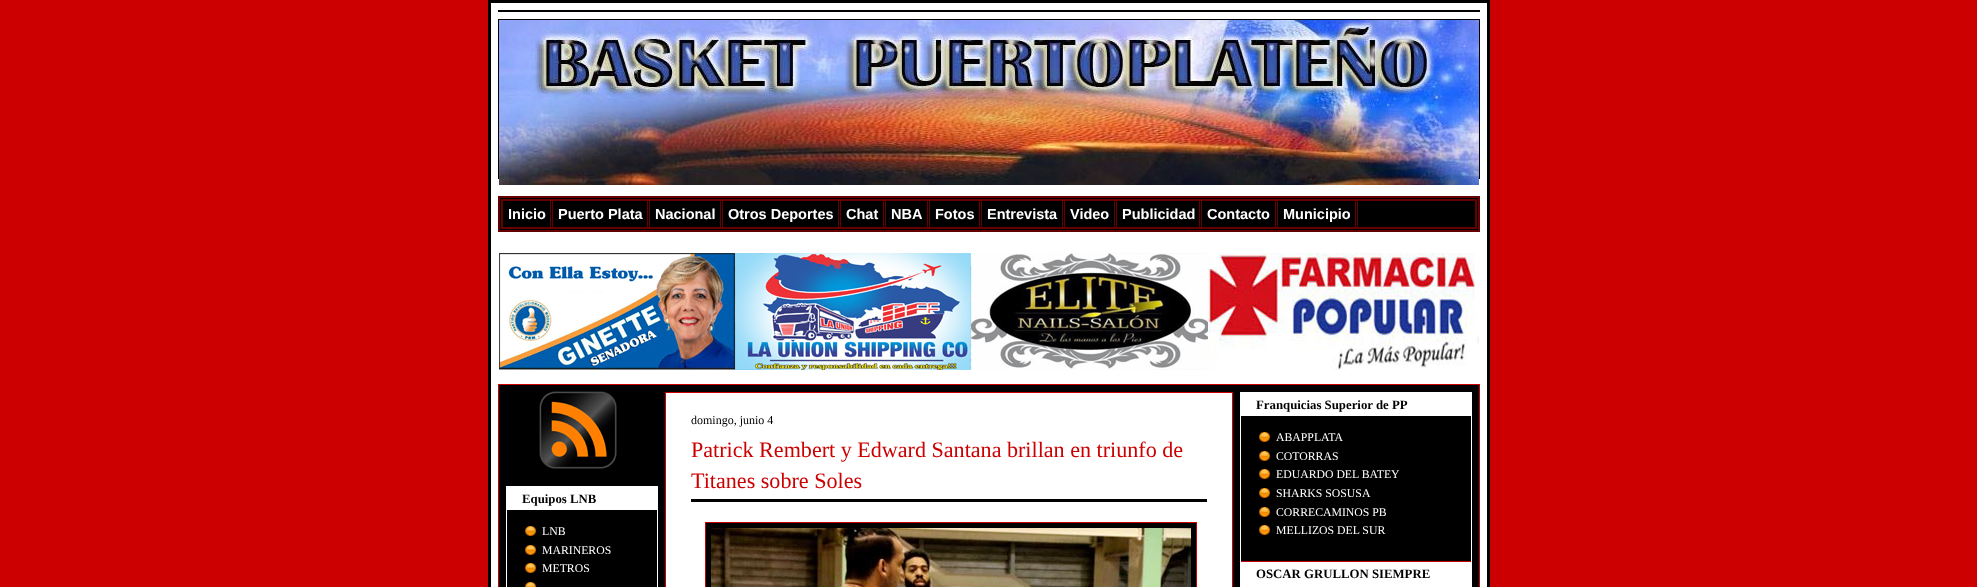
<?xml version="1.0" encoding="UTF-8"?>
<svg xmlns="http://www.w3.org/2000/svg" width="1977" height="587">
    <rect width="100%" height="100%" fill="#CC0000"/>
    <rect x="489.5" y="1.5" width="999" height="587" fill="#FFFFFF" stroke="#000000" stroke-width="3"/>
    <rect x="498" y="10" width="982" height="2" fill="#000000"/>
    <rect x="498.5" y="19.5" width="981" height="159" fill="none" stroke="#000000"/>
    <image x="499" y="20" width="980" height="165" href="img_01.png"/>
    <rect x="499" y="197" width="980" height="34" fill="#000000" stroke="#660000" stroke-width="2"/>
    <rect x="502" y="200" width="974" height="28" fill="none" stroke="#660000" stroke-width="2"/>
    <text x="508" y="219" font-family="Liberation Sans" font-size="14.5" font-weight="700" fill="#FFFFFF">Inicio</text>
    <rect x="550" y="201" width="1" height="26" fill="#660000"/>
    <rect x="552" y="201" width="1" height="26" fill="#660000"/>
    <text x="558" y="219" font-family="Liberation Sans" font-size="14.5" font-weight="700" fill="#FFFFFF">Puerto Plata</text>
    <rect x="647" y="201" width="1" height="26" fill="#660000"/>
    <rect x="649" y="201" width="1" height="26" fill="#660000"/>
    <text x="655" y="219" font-family="Liberation Sans" font-size="14.5" font-weight="700" fill="#FFFFFF">Nacional</text>
    <rect x="720" y="201" width="1" height="26" fill="#660000"/>
    <rect x="722" y="201" width="1" height="26" fill="#660000"/>
    <text x="728" y="219" font-family="Liberation Sans" font-size="14.5" font-weight="700" fill="#FFFFFF">Otros Deportes</text>
    <rect x="838" y="201" width="1" height="26" fill="#660000"/>
    <rect x="840" y="201" width="1" height="26" fill="#660000"/>
    <text x="846" y="219" font-family="Liberation Sans" font-size="14.5" font-weight="700" fill="#FFFFFF">Chat</text>
    <rect x="883" y="201" width="1" height="26" fill="#660000"/>
    <rect x="885" y="201" width="1" height="26" fill="#660000"/>
    <text x="891" y="219" font-family="Liberation Sans" font-size="14.5" font-weight="700" fill="#FFFFFF">NBA</text>
    <rect x="927" y="201" width="1" height="26" fill="#660000"/>
    <rect x="929" y="201" width="1" height="26" fill="#660000"/>
    <text x="935" y="219" font-family="Liberation Sans" font-size="14.5" font-weight="700" fill="#FFFFFF">Fotos</text>
    <rect x="979" y="201" width="1" height="26" fill="#660000"/>
    <rect x="981" y="201" width="1" height="26" fill="#660000"/>
    <text x="987" y="219" font-family="Liberation Sans" font-size="14.5" font-weight="700" fill="#FFFFFF">Entrevista</text>
    <rect x="1062" y="201" width="1" height="26" fill="#660000"/>
    <rect x="1064" y="201" width="1" height="26" fill="#660000"/>
    <text x="1070" y="219" font-family="Liberation Sans" font-size="14.5" font-weight="700" fill="#FFFFFF">Video</text>
    <rect x="1114" y="201" width="1" height="26" fill="#660000"/>
    <rect x="1116" y="201" width="1" height="26" fill="#660000"/>
    <text x="1122" y="219" font-family="Liberation Sans" font-size="14.5" font-weight="700" fill="#FFFFFF">Publicidad</text>
    <rect x="1199" y="201" width="1" height="26" fill="#660000"/>
    <rect x="1201" y="201" width="1" height="26" fill="#660000"/>
    <text x="1207" y="219" font-family="Liberation Sans" font-size="14.5" font-weight="700" fill="#FFFFFF">Contacto</text>
    <rect x="1275" y="201" width="1" height="26" fill="#660000"/>
    <rect x="1277" y="201" width="1" height="26" fill="#660000"/>
    <text x="1283" y="219" font-family="Liberation Sans" font-size="14.5" font-weight="700" fill="#FFFFFF">Municipio</text>
    <rect x="1355" y="201" width="1" height="26" fill="#660000"/>
    <rect x="1357" y="201" width="1" height="26" fill="#660000"/>
    <image x="499" y="253" width="980" height="117" href="img_02.png"/>
    <rect x="498.5" y="384.5" width="981" height="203" fill="#000000" stroke="#CC0000"/>
    <rect x="665.5" y="392.5" width="567" height="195" fill="#FFFFFF" stroke="#CC0000"/>
    <text x="691" y="424" font-family="Liberation Serif" font-size="12" fill="#000000">domingo, junio 4</text>
    <rect x="691" y="499" width="516" height="3" fill="#000000"/>
    <text font-family="Liberation Serif" font-size="22.1" fill="#CC0000">
        <tspan x="691" y="457">Patrick Rembert y Edward Santana brillan en triunfo de</tspan>
        <tspan x="691" y="488">Titanes sobre Soles</tspan>
    </text>
    <rect x="705.5" y="522.5" width="491" height="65" fill="#000000" stroke="#CC0000"/>
    <image x="711" y="528" width="480" height="59" href="img_03.png"/>
    <rect x="1240" y="392" width="232" height="1" fill="#FFFFFF"/>
    <rect x="1471" y="392" width="1" height="195" fill="#FFFFFF"/>
    <rect x="1240" y="392" width="1" height="195" fill="#FFFFFF"/>
    <rect x="1241" y="561" width="230" height="1" fill="#CC0000"/>
    <rect x="1241" y="393" width="230" height="23" fill="#FFFFFF"/>
    <text x="1256" y="409" font-family="Liberation Serif" font-size="12.8" font-weight="700" fill="#000000">Franquicias Superior de PP</text>
    <image x="1259" y="432" width="11" height="10" href="img_04.png"/>
    <text x="1276" y="441" font-family="Liberation Serif" font-size="11.75" fill="#FFFFFF">ABAPPLATA</text>
    <image x="1259" y="451" width="11" height="10" href="img_04.png"/>
    <text x="1276" y="460" font-family="Liberation Serif" font-size="11.75" fill="#FFFFFF">COTORRAS</text>
    <image x="1259" y="469" width="11" height="10" href="img_04.png"/>
    <text x="1276" y="478" font-family="Liberation Serif" font-size="11.75" fill="#FFFFFF">EDUARDO DEL BATEY</text>
    <image x="1259" y="488" width="11" height="10" href="img_04.png"/>
    <text x="1276" y="497" font-family="Liberation Serif" font-size="11.75" fill="#FFFFFF">SHARKS SOSUSA</text>
    <image x="1259" y="507" width="11" height="10" href="img_04.png"/>
    <text x="1276" y="516" font-family="Liberation Serif" font-size="11.75" fill="#FFFFFF">CORRECAMINOS PB</text>
    <image x="1259" y="525" width="11" height="10" href="img_04.png"/>
    <text x="1276" y="534" font-family="Liberation Serif" font-size="11.75" fill="#FFFFFF">MELLIZOS DEL SUR</text>
    <rect x="1241" y="562" width="230" height="25" fill="#FFFFFF"/>
    <text x="1256" y="578" font-family="Liberation Serif" font-size="12.8" font-weight="700" fill="#000000">OSCAR GRULLON SIEMPRE</text>
    <image x="539" y="391" width="78" height="78" href="img_05.png"/>
    <rect x="506" y="486" width="152" height="1" fill="#FFFFFF"/>
    <rect x="657" y="486" width="1" height="101" fill="#FFFFFF"/>
    <rect x="506" y="486" width="1" height="101" fill="#FFFFFF"/>
    <rect x="507" y="487" width="150" height="23" fill="#FFFFFF"/>
    <text x="522" y="503" font-family="Liberation Serif" font-size="12.8" font-weight="700" fill="#000000">Equipos LNB</text>
    <image x="525" y="526" width="11" height="10" href="img_04.png"/>
    <text x="542" y="535" font-family="Liberation Serif" font-size="11.75" fill="#FFFFFF">LNB</text>
    <image x="525" y="545" width="11" height="10" href="img_04.png"/>
    <text x="542" y="554" font-family="Liberation Serif" font-size="11.75" fill="#FFFFFF">MARINEROS</text>
    <image x="525" y="563" width="11" height="10" href="img_04.png"/>
    <text x="542" y="572" font-family="Liberation Serif" font-size="11.75" fill="#FFFFFF">METROS</text>
    <image x="525" y="582" width="11" height="5" href="img_06.png"/>
</svg>
